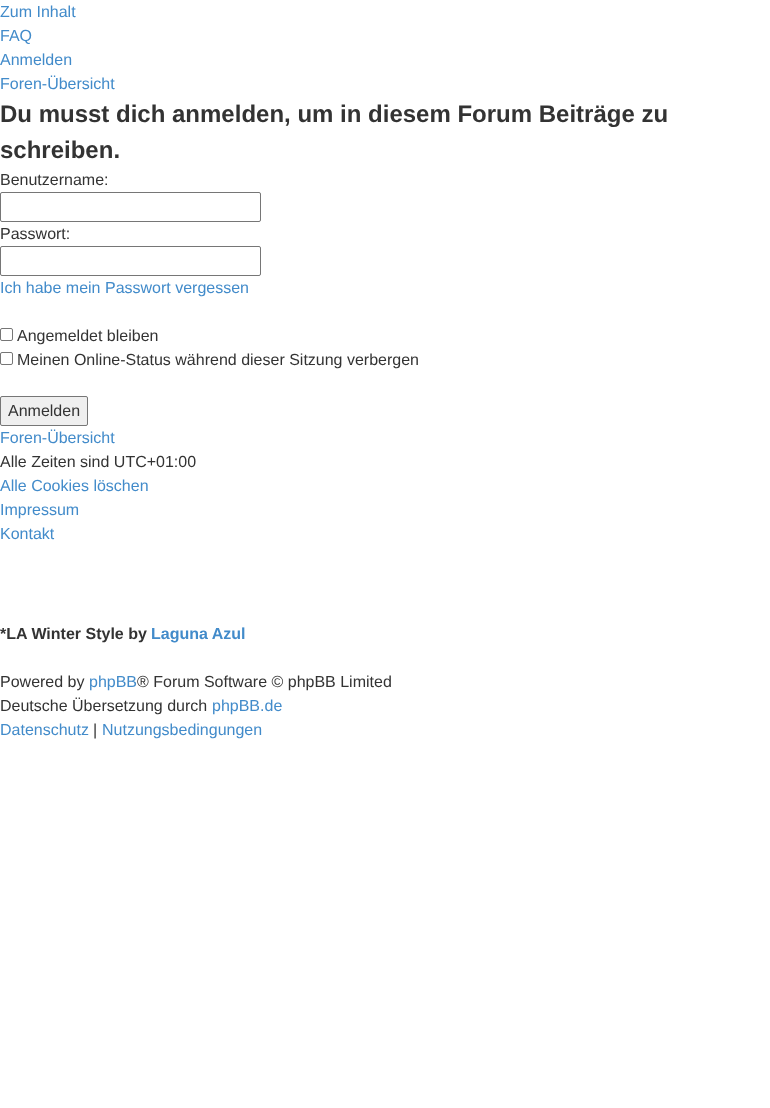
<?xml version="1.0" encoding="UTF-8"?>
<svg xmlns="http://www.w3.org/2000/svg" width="770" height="1108">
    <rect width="100%" height="100%" fill="#FFFFFF"/>
    <text font-family="Liberation Sans" font-size="16" fill="#428BCA">
        <tspan x="0" y="17">Zum Inhalt</tspan>
        <tspan x="0" y="41">FAQ</tspan>
        <tspan x="0" y="65">Anmelden</tspan>
        <tspan x="0" y="89">Foren-Übersicht</tspan>
    </text>
    <text font-family="Liberation Sans" font-size="24" font-weight="700" fill="#333333">
        <tspan x="0" y="122">Du musst dich anmelden, um in diesem Forum Beiträge zu</tspan>
        <tspan x="0" y="158">schreiben.</tspan>
    </text>
    <text x="0" y="185" font-family="Liberation Sans" font-size="16" fill="#333333">Benutzername:</text>
    <rect x="0.5" y="192.5" width="260" height="29" rx="1.5" fill="none" stroke="#767676"/>
    <text x="0" y="239" font-family="Liberation Sans" font-size="16" fill="#333333">Passwort:</text>
    <rect x="0.5" y="246.5" width="260" height="29" rx="1.5" fill="none" stroke="#767676"/>
    <text x="0" y="293" font-family="Liberation Sans" font-size="16" fill="#428BCA">Ich habe mein Passwort vergessen</text>
    <rect x="0.5" y="328.5" width="12" height="12" rx="1.5" fill="none" stroke="#767676"/>
    <text x="17" y="341" font-family="Liberation Sans" font-size="16" fill="#333333">Angemeldet bleiben</text>
    <rect x="0.5" y="352.5" width="12" height="12" rx="1.5" fill="none" stroke="#767676"/>
    <text x="17" y="365" font-family="Liberation Sans" font-size="16" fill="#333333">Meinen Online-Status während dieser Sitzung verbergen</text>
    <rect x="0.5" y="396.5" width="87" height="29" rx="1.5" fill="#EFEFEF" stroke="#767676"/>
    <text x="8" y="416" font-family="Liberation Sans" font-size="16" fill="#333333">Anmelden</text>
    <text x="0" y="443" font-family="Liberation Sans" font-size="16" fill="#428BCA">Foren-Übersicht</text>
    <text x="0" y="467" font-family="Liberation Sans" font-size="16" fill="#333333">Alle Zeiten sind UTC+01:00</text>
    <text font-family="Liberation Sans" font-size="16" fill="#428BCA">
        <tspan x="0" y="491">Alle Cookies löschen</tspan>
        <tspan x="0" y="515">Impressum</tspan>
        <tspan x="0" y="539">Kontakt</tspan>
    </text>
    <text x="0" y="639" font-family="Liberation Sans" font-size="16" font-weight="700" fill="#333333">*LA Winter Style by</text>
    <text x="151" y="639" font-family="Liberation Sans" font-size="16" font-weight="700" fill="#428BCA">Laguna Azul</text>
    <text x="0" y="687" font-family="Liberation Sans" font-size="16" fill="#333333">Powered by</text>
    <text x="89" y="687" font-family="Liberation Sans" font-size="16" fill="#428BCA">phpBB</text>
    <text x="137" y="687" font-family="Liberation Sans" font-size="16" fill="#333333">® Forum Software © phpBB Limited</text>
    <text x="0" y="711" font-family="Liberation Sans" font-size="16" fill="#333333">Deutsche Übersetzung durch</text>
    <text x="212" y="711" font-family="Liberation Sans" font-size="16" fill="#428BCA">phpBB.de</text>
    <text x="0" y="735" font-family="Liberation Sans" font-size="16" fill="#428BCA">Datenschutz</text>
    <text x="93" y="735" font-family="Liberation Sans" font-size="16" fill="#333333">|</text>
    <text x="102" y="735" font-family="Liberation Sans" font-size="16" fill="#428BCA">Nutzungsbedingungen</text>
</svg>
